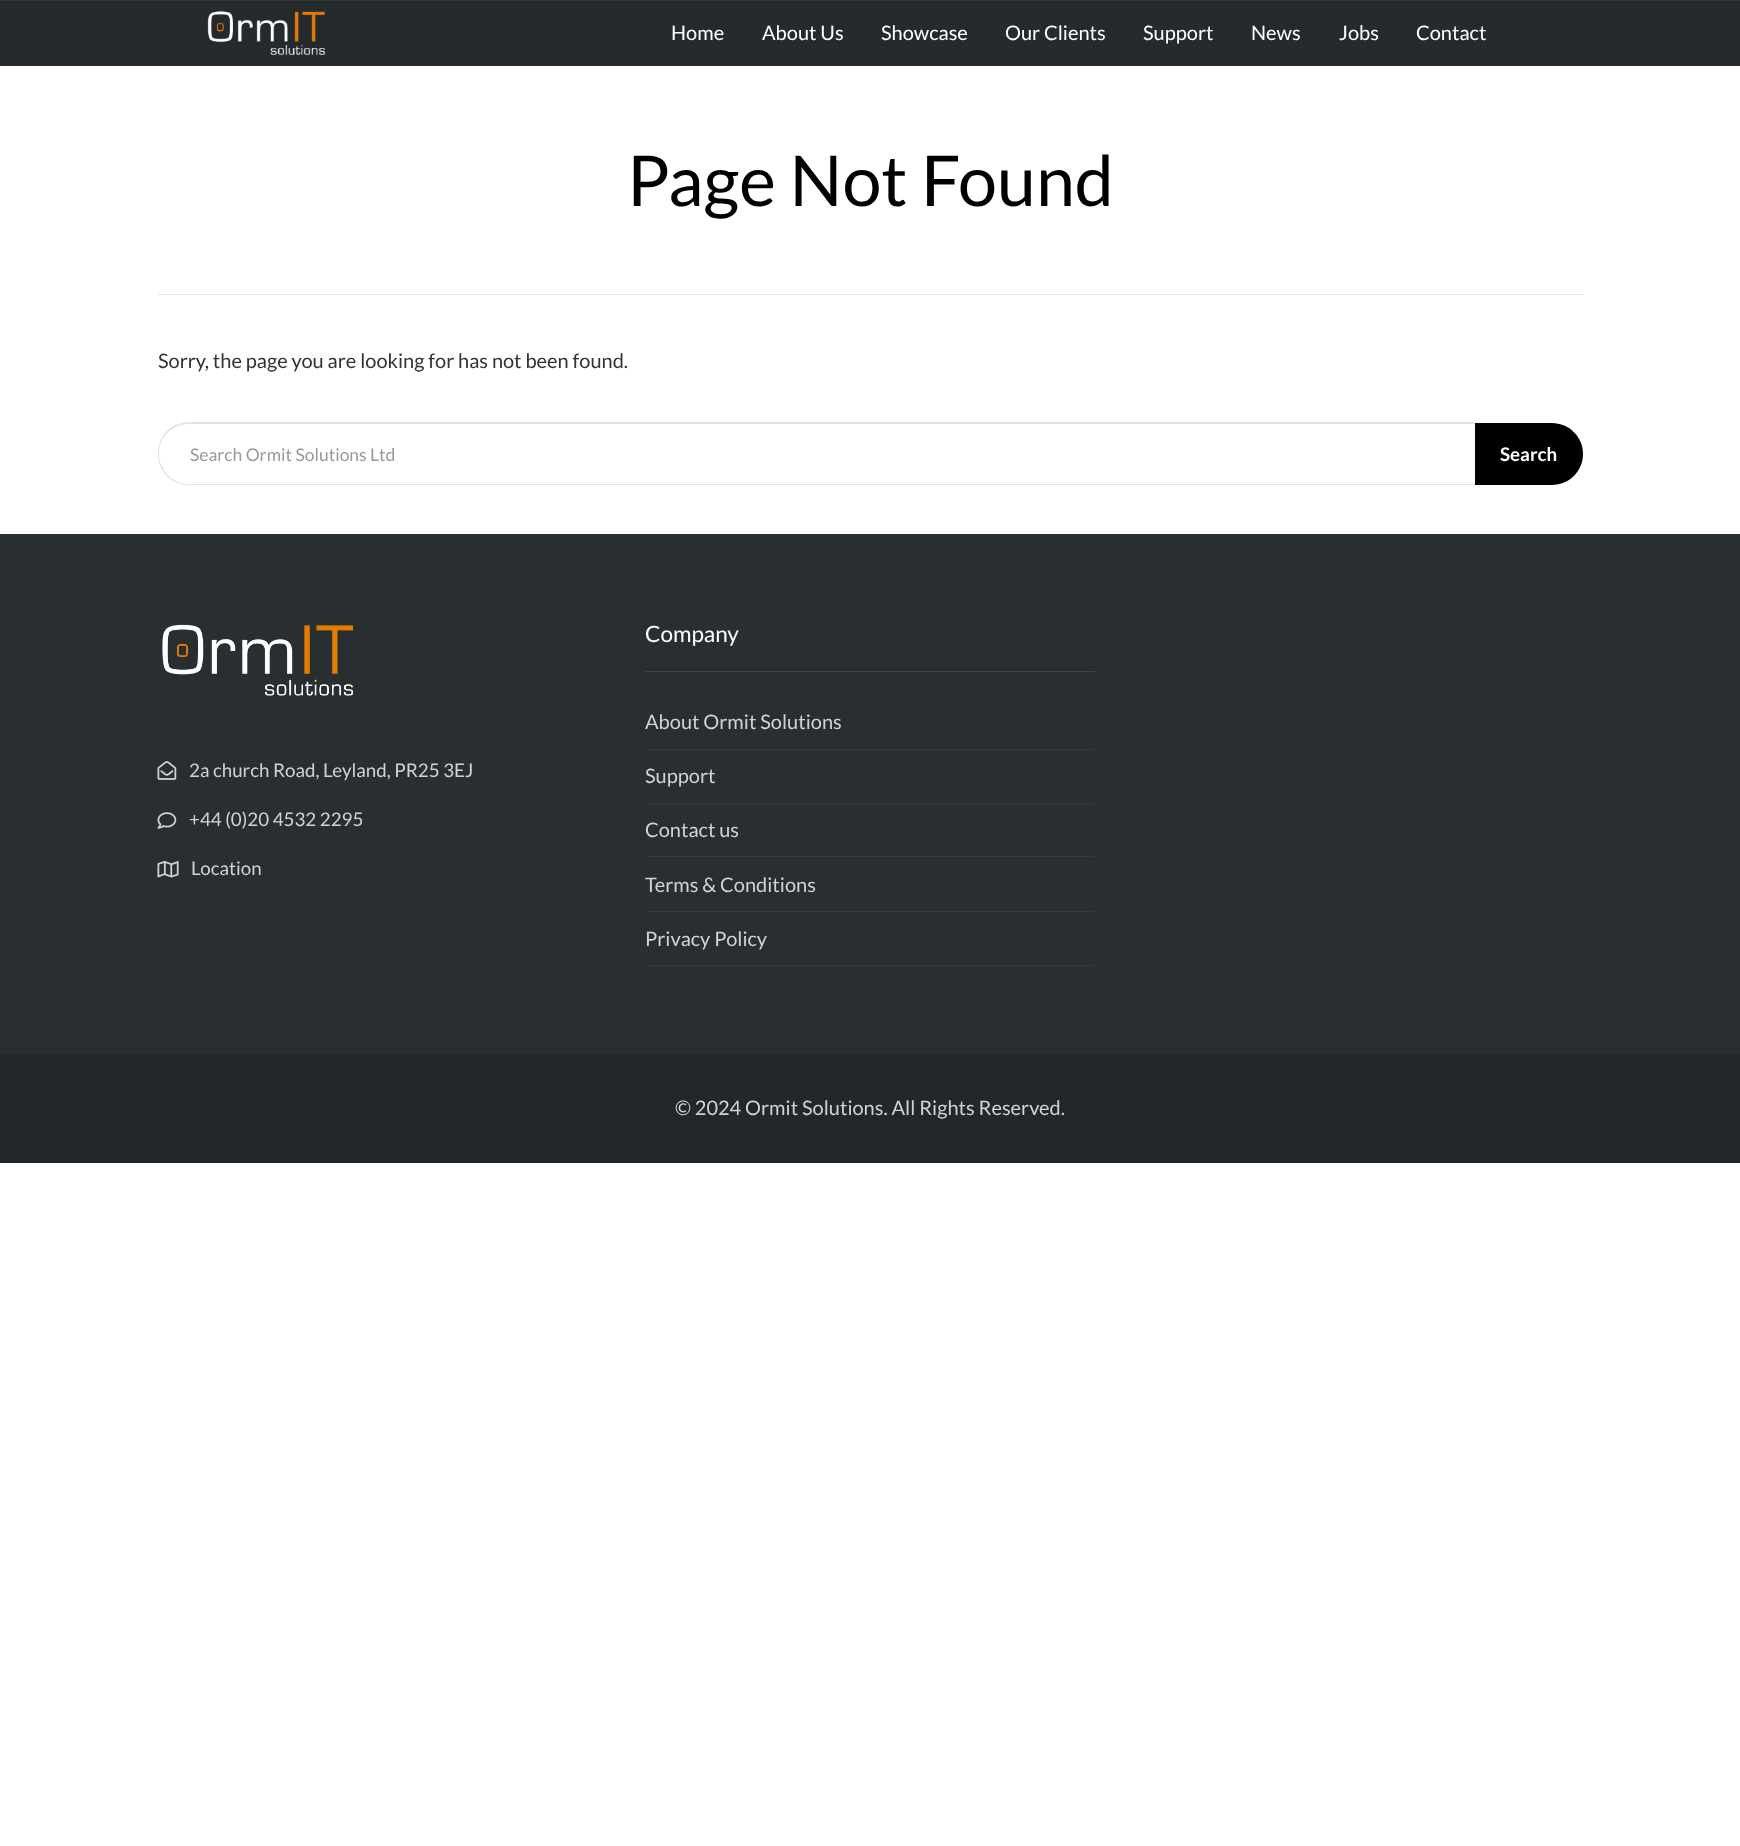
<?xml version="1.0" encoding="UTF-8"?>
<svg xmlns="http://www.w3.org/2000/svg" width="1740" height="1846">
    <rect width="100%" height="100%" fill="#FFFFFF"/>
    <rect x="0" y="0" width="1740" height="1" fill="#303739"/>
    <rect x="0" y="1" width="1740" height="65" fill="#252B2D"/>
    <image x="207" y="11" width="119" height="44" href="img_01.png"/>
    <text x="671" y="40" font-family="Lato" font-size="20" fill="#FFFFFF">Home</text>
    <text x="762" y="40" font-family="Lato" font-size="20" fill="#FFFFFF">About Us</text>
    <text x="881" y="40" font-family="Lato" font-size="20" fill="#FFFFFF">Showcase</text>
    <text x="1005" y="40" font-family="Lato" font-size="20" fill="#FFFFFF">Our Clients</text>
    <text x="1143" y="40" font-family="Lato" font-size="20" fill="#FFFFFF">Support</text>
    <text x="1251" y="40" font-family="Lato" font-size="20" fill="#FFFFFF">News</text>
    <text x="1339" y="40" font-family="Lato" font-size="20" fill="#FFFFFF">Jobs</text>
    <text x="1416" y="40" font-family="Lato" font-size="20" fill="#FFFFFF">Contact</text>
    <rect x="158" y="294" width="1425" height="1" fill="#E6E6E6"/>
    <text x="627" y="206" font-family="Lato" font-size="70" fill="#000000">Page Not Found</text>
    <text x="158" y="368" font-family="Lato" font-size="20" fill="#333333">Sorry, the page you are looking for has not been found.</text>
    <path d="M 189 422 H 1475 V 485 H 189 C 171 485 158 471 158 454 C 158 436 171 422 189 422 Z M 189 424 H 1475 V 484 H 189 C 172 484 159 470 159 454 C 159 437 172 424 189 424 Z" fill="#E2E2E2" fill-rule="evenodd"/>
    <text x="190" y="461" font-family="Lato" font-size="17.5" fill="#999999">Search Ormit Solutions Ltd</text>
    <path d="M 1475 423 H 1552 C 1569 423 1583 437 1583 454 C 1583 471 1569 485 1552 485 H 1475 Z" fill="#000000"/>
    <text x="1500" y="461" font-family="Lato" font-size="18.75" font-weight="700" fill="#FFFFFF">Search</text>
    <rect x="0" y="534" width="1740" height="520" fill="#292E31"/>
    <image x="162" y="624" width="192" height="72" href="img_02.png"/>
    <image x="157" y="761" width="20" height="19" href="img_03.png"/>
    <text x="189" y="777" font-family="Lato" font-size="18.75" fill="#D2D2D2">2a church Road, Leyland, PR25 3EJ</text>
    <image x="157" y="812" width="20" height="17" href="img_04.png"/>
    <text x="189" y="826" font-family="Lato" font-size="18.75" fill="#D2D2D2">+44 (0)20 4532 2295</text>
    <image x="157" y="861" width="22" height="17" href="img_05.png"/>
    <text x="191" y="875" font-family="Lato" font-size="18.75" fill="#D2D2D2">Location</text>
    <rect x="645" y="671" width="450" height="1" fill="#3E4346"/>
    <text x="645" y="642" font-family="Lato" font-size="22.5" fill="#FFFFFF">Company</text>
    <rect x="645" y="749" width="450" height="1" fill="#34383B"/>
    <text x="645" y="729" font-family="Lato" font-size="20" fill="#D2D2D2">About Ormit Solutions</text>
    <rect x="645" y="803" width="450" height="1" fill="#34383B"/>
    <text x="645" y="783" font-family="Lato" font-size="20" fill="#D2D2D2">Support</text>
    <rect x="645" y="856" width="450" height="1" fill="#34383B"/>
    <text x="645" y="837" font-family="Lato" font-size="20" fill="#D2D2D2">Contact us</text>
    <rect x="645" y="911" width="450" height="1" fill="#34383B"/>
    <text x="645" y="892" font-family="Lato" font-size="20" fill="#D2D2D2">Terms &amp; Conditions</text>
    <rect x="645" y="965" width="450" height="1" fill="#34383B"/>
    <text x="645" y="946" font-family="Lato" font-size="20" fill="#D2D2D2">Privacy Policy</text>
    <rect x="0" y="1054" width="1740" height="109" fill="#23272A"/>
    <text x="675" y="1115" font-family="Lato" font-size="20" fill="#D2D2D2">© 2024 Ormit Solutions. All Rights Reserved.</text>
</svg>
